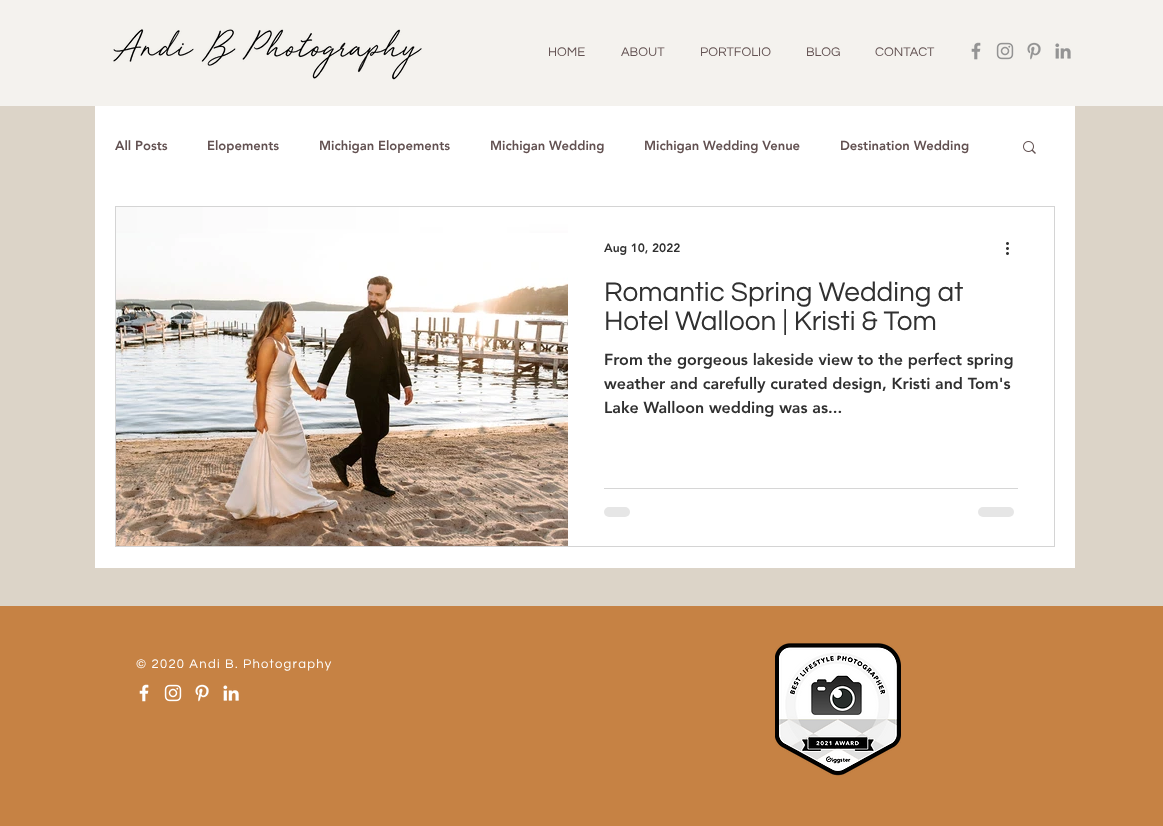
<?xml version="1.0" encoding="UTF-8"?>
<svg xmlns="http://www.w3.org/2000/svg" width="1163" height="826">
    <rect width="100%" height="100%" fill="#DCD4C8"/>
    <rect x="0" y="0" width="1163" height="106" fill="#F4F2EE"/>
    <image x="113" y="29" width="309" height="51" href="img_01.png"/>
    <text x="548" y="56" font-family="Questrial" font-size="13" fill="#625151">HOME</text>
    <text x="621" y="56" font-family="Questrial" font-size="13" fill="#625151">ABOUT</text>
    <text x="700" y="56" font-family="Questrial" font-size="13" fill="#625151">PORTFOLIO</text>
    <text x="806" y="56" font-family="Questrial" font-size="13" fill="#625151">BLOG</text>
    <text x="875" y="56" font-family="Questrial" font-size="13" fill="#625151">CONTACT</text>
    <image x="971" y="42" width="10" height="18" href="img_02.png"/>
    <image x="996" y="42" width="18" height="18" href="img_03.png"/>
    <image x="1027" y="42" width="14" height="18" href="img_04.png"/>
    <image x="1055" y="43" width="16" height="16" href="img_05.png"/>
    <rect x="95" y="106" width="980" height="462" fill="#FFFFFF"/>
    <text x="115" y="150" font-family="'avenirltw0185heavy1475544'" font-size="13" font-weight="900" fill="#625151">All Posts</text>
    <text x="207" y="150" font-family="'avenirltw0185heavy1475544'" font-size="13" font-weight="900" fill="#625151">Elopements</text>
    <text x="319" y="150" font-family="'avenirltw0185heavy1475544'" font-size="13" font-weight="900" fill="#625151">Michigan Elopements</text>
    <text x="490" y="150" font-family="'avenirltw0185heavy1475544'" font-size="13" font-weight="900" fill="#625151">Michigan Wedding</text>
    <text x="644" y="150" font-family="'avenirltw0185heavy1475544'" font-size="13" font-weight="900" fill="#625151">Michigan Wedding Venue</text>
    <text x="840" y="150" font-family="'avenirltw0185heavy1475544'" font-size="13" font-weight="900" fill="#625151">Destination Wedding</text>
    <image x="1023" y="141" width="13" height="13" href="img_06.png"/>
    <rect x="115.5" y="206.5" width="939" height="340" fill="none" stroke="#D4D4D4"/>
    <image x="116" y="207" width="452" height="26" href="img_07.png"/>
    <image x="116" y="233" width="452" height="313" href="img_08.png"/>
    <text x="604" y="252" font-family="'avenirltw0185heavy1475544'" font-size="12" font-weight="900" fill="#303030">Aug 10, 2022</text>
    <image x="1006" y="242" width="3" height="13" href="img_09.png"/>
    <text font-family="Questrial" font-size="28" fill="#303030">
        <tspan x="604" y="301">Romantic Spring Wedding at</tspan>
        <tspan x="604" y="330">Hotel Walloon | Kristi &amp; Tom</tspan>
    </text>
    <text font-family="'avenirltw0185heavy1475544'" font-size="16" font-weight="900" fill="#303030">
        <tspan x="604" y="365">From the gorgeous lakeside view to the perfect spring</tspan>
        <tspan x="604" y="389">weather and carefully curated design, Kristi and Tom's</tspan>
        <tspan x="604" y="413">Lake Walloon wedding was as...</tspan>
    </text>
    <rect x="604" y="488" width="414" height="1" fill="#D6D6D6"/>
    <rect x="604" y="507" width="26" height="10" rx="5" fill="#E6E6E6"/>
    <rect x="978" y="507" width="36" height="10" rx="5" fill="#E6E6E6"/>
    <rect x="0" y="606" width="1163" height="220" fill="#C68244"/>
    <text x="136" y="668" font-family="Questrial" font-size="13" letter-spacing="1.3" fill="#FFFFFF">© 2020 Andi B. Photography</text>
    <image x="775" y="643" width="126" height="133" href="img_10.png"/>
    <image x="139" y="684" width="10" height="18" href="img_11.png"/>
    <image x="164" y="684" width="18" height="18" href="img_12.png"/>
    <image x="195" y="684" width="14" height="18" href="img_13.png"/>
    <image x="223" y="685" width="16" height="16" href="img_14.png"/>
</svg>
